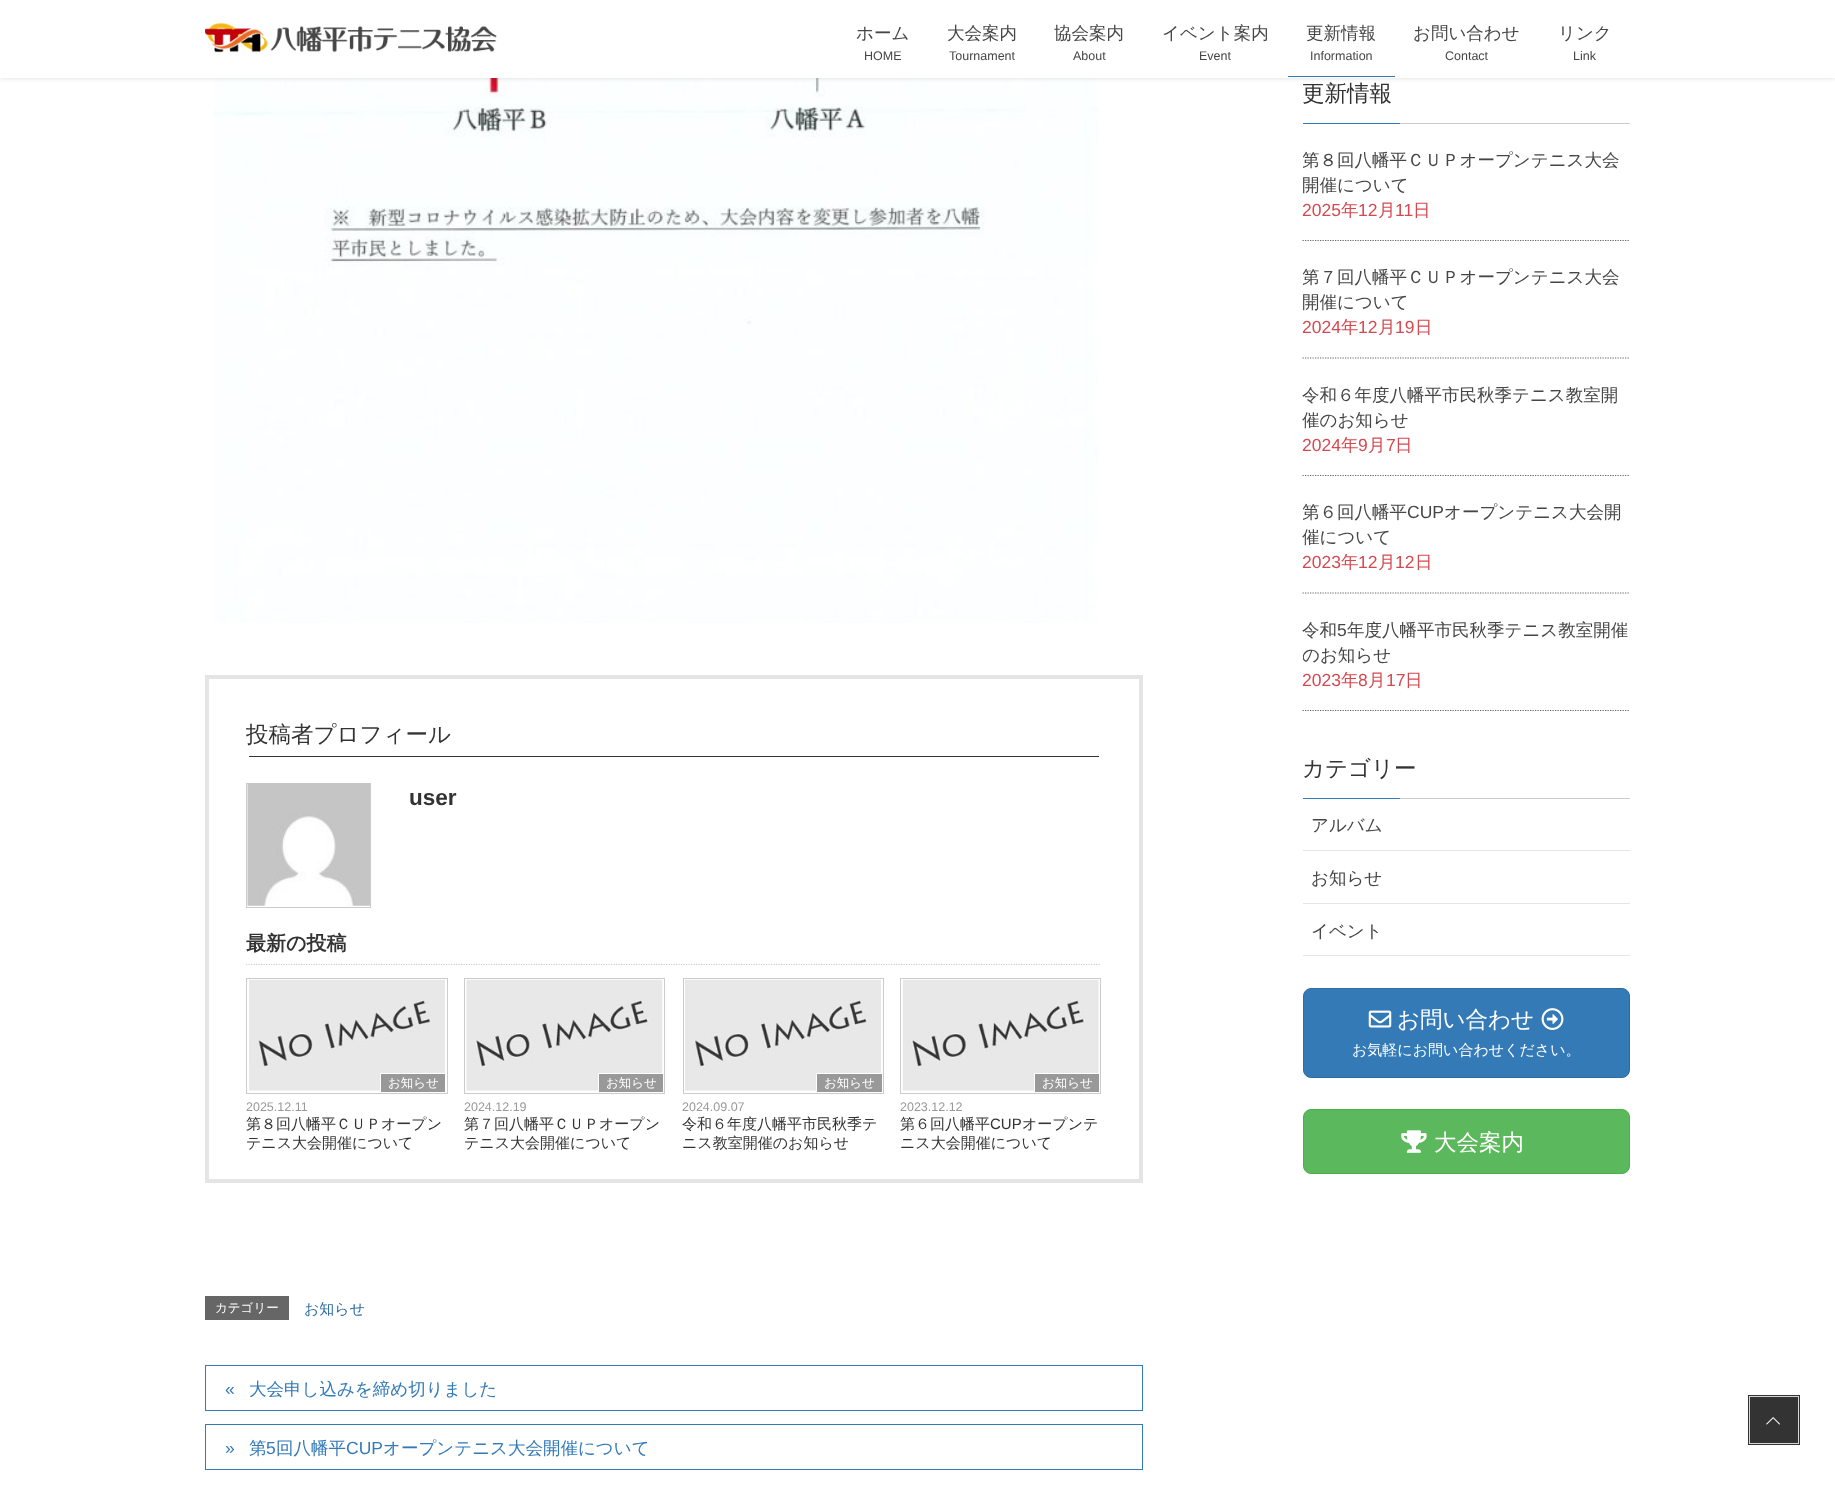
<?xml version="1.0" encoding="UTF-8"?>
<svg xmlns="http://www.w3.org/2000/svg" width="1835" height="1488">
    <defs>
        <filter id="blur1" x="-50%" y="-200%" width="200%" height="500%"><feGaussianBlur stdDeviation="2"/></filter>
        <clipPath id="clip1"><rect x="1303" y="143" width="327" height="78"/></clipPath>
        <clipPath id="clip2"><rect x="1303" y="260" width="327" height="79"/></clipPath>
        <clipPath id="clip3"><rect x="1303" y="495" width="327" height="79"/></clipPath>
        <clipPath id="clip4"><rect x="1303" y="613" width="327" height="78"/></clipPath>
    </defs>
    <rect width="100%" height="100%" fill="#FFFFFF"/>
    <image x="213" y="78" width="886" height="545" href="img_02.png"/>
    <rect x="0" y="1" width="1835" height="78" fill="#000000" fill-opacity="0.1" filter="url(#blur1)"/>
    <rect x="0" y="0" width="1835" height="78" fill="#FFFFFF"/>
    <image x="205" y="23" width="292" height="30" href="img_01.png"/>
    <text x="856" y="39" font-family="WenQuanYi Zen Hei" font-size="17.5" font-weight="500" fill="#464646">ホーム</text>
    <text x="864" y="60" font-family="Liberation Sans" font-size="12.5" fill="#464646">HOME</text>
    <text x="947" y="39" font-family="WenQuanYi Zen Hei" font-size="17.5" font-weight="500" fill="#464646">大会案内</text>
    <text x="949" y="60" font-family="Liberation Sans" font-size="12.5" fill="#464646">Tournament</text>
    <text x="1054" y="39" font-family="WenQuanYi Zen Hei" font-size="17.5" font-weight="500" fill="#464646">協会案内</text>
    <text x="1073" y="60" font-family="Liberation Sans" font-size="12.5" fill="#464646">About</text>
    <text x="1162" y="39" font-family="WenQuanYi Zen Hei" font-size="17.5" font-weight="500" fill="#464646">イベント案内</text>
    <text x="1199" y="60" font-family="Liberation Sans" font-size="12.5" fill="#464646">Event</text>
    <text x="1306" y="39" font-family="WenQuanYi Zen Hei" font-size="17.5" font-weight="500" fill="#464646">更新情報</text>
    <text x="1310" y="60" font-family="Liberation Sans" font-size="12.5" fill="#464646">Information</text>
    <rect x="1288" y="76" width="107" height="1" fill="#337AB7"/>
    <text x="1413" y="39" font-family="WenQuanYi Zen Hei" font-size="17.5" font-weight="500" fill="#464646">お問い合わせ</text>
    <text x="1445" y="60" font-family="Liberation Sans" font-size="12.5" fill="#464646">Contact</text>
    <text x="1558" y="39" font-family="WenQuanYi Zen Hei" font-size="17.5" font-weight="500" fill="#464646">リンク</text>
    <text x="1573" y="60" font-family="Liberation Sans" font-size="12.5" fill="#464646">Link</text>
    <rect x="207" y="677" width="934" height="504" fill="none" stroke="#E5E5E5" stroke-width="4"/>
    <rect x="249" y="756" width="850" height="1" fill="#333333"/>
    <text x="246" y="742" font-family="WenQuanYi Zen Hei" font-size="22.5" font-weight="500" fill="#333333">投稿者プロフィール</text>
    <rect x="246.5" y="783.5" width="124" height="124" fill="none" stroke="#CCCCCC"/>
    <image x="247" y="783" width="123" height="123" href="img_03.png"/>
    <text x="409" y="805" font-family="Liberation Sans" font-size="22.5" font-weight="700" fill="#333333">user</text>
    <path d="M 246 964.5 H 1101" fill="none" stroke="#CCCCCC" stroke-width="1.2" stroke-dasharray="1.25 1.25"/>
    <text x="246" y="950" font-family="WenQuanYi Zen Hei" font-size="20" font-weight="700" fill="#333333">最新の投稿</text>
    <rect x="246.5" y="978.5" width="201" height="115" fill="none" stroke="#CCCCCC"/>
    <image x="249" y="979" width="196" height="112" href="img_04.png"/>
    <rect x="380.5" y="1073.5" width="65" height="19" fill="#999999" stroke="#FFFFFF"/>
    <text x="388" y="1087" font-family="WenQuanYi Zen Hei" font-size="12.5" font-weight="500" fill="#FFFFFF">お知らせ</text>
    <text x="246" y="1111" font-family="Liberation Sans" font-size="12.5" fill="#999999">2025.12.11</text>
    <text font-family="WenQuanYi Zen Hei" font-size="15" font-weight="500" fill="#333333">
        <tspan x="246" y="1129">第８回八幡平ＣＵＰオープン</tspan>
        <tspan x="246" y="1148">テニス大会開催について</tspan>
    </text>
    <rect x="464.5" y="978.5" width="200" height="115" fill="none" stroke="#CCCCCC"/>
    <image x="466" y="979" width="197" height="112" href="img_05.png"/>
    <rect x="598.5" y="1073.5" width="65" height="19" fill="#999999" stroke="#FFFFFF"/>
    <text x="606" y="1087" font-family="WenQuanYi Zen Hei" font-size="12.5" font-weight="500" fill="#FFFFFF">お知らせ</text>
    <text x="464" y="1111" font-family="Liberation Sans" font-size="12.5" fill="#999999">2024.12.19</text>
    <text font-family="WenQuanYi Zen Hei" font-size="15" font-weight="500" fill="#333333">
        <tspan x="464" y="1129">第７回八幡平ＣＵＰオープン</tspan>
        <tspan x="464" y="1148">テニス大会開催について</tspan>
    </text>
    <rect x="683.5" y="978.5" width="200" height="115" fill="none" stroke="#CCCCCC"/>
    <image x="685" y="979" width="196" height="112" href="img_06.png"/>
    <rect x="816.5" y="1073.5" width="66" height="19" fill="#999999" stroke="#FFFFFF"/>
    <text x="824" y="1087" font-family="WenQuanYi Zen Hei" font-size="12.5" font-weight="500" fill="#FFFFFF">お知らせ</text>
    <text x="682" y="1111" font-family="Liberation Sans" font-size="12.5" fill="#999999">2024.09.07</text>
    <text font-family="WenQuanYi Zen Hei" font-size="15" font-weight="500" fill="#333333">
        <tspan x="682" y="1129">令和６年度八幡平市民秋季テ</tspan>
        <tspan x="682" y="1148">ニス教室開催のお知らせ</tspan>
    </text>
    <rect x="900.5" y="978.5" width="200" height="115" fill="none" stroke="#CCCCCC"/>
    <image x="902" y="979" width="197" height="112" href="img_07.png"/>
    <rect x="1034.5" y="1073.5" width="65" height="19" fill="#999999" stroke="#FFFFFF"/>
    <text x="1042" y="1087" font-family="WenQuanYi Zen Hei" font-size="12.5" font-weight="500" fill="#FFFFFF">お知らせ</text>
    <text x="900" y="1111" font-family="Liberation Sans" font-size="12.5" fill="#999999">2023.12.12</text>
    <text x="900" y="1129" font-family="WenQuanYi Zen Hei" font-size="15" font-weight="500" fill="#333333">第６回八幡平</text>
    <text x="990" y="1129" font-family="Liberation Sans" font-size="15" fill="#333333">CUP</text>
    <text x="1022" y="1129" font-family="WenQuanYi Zen Hei" font-size="15" font-weight="500" fill="#333333">オープンテ</text>
    <text x="900" y="1148" font-family="WenQuanYi Zen Hei" font-size="15" font-weight="500" fill="#333333">ニス大会開催について</text>
    <rect x="205" y="1296" width="84" height="24" fill="#666666"/>
    <text x="215" y="1312" font-family="WenQuanYi Zen Hei" font-size="12.5" font-weight="500" fill="#FFFFFF">カテゴリー</text>
    <text x="304" y="1314" font-family="WenQuanYi Zen Hei" font-size="15" font-weight="500" fill="#2E6DA4">お知らせ</text>
    <rect x="205.5" y="1365.5" width="937" height="45" fill="none" stroke="#337AB7"/>
    <text x="225" y="1395" font-family="Liberation Sans" font-size="17.5" fill="#337AB7">«</text>
    <text x="249" y="1395" font-family="WenQuanYi Zen Hei" font-size="17.5" font-weight="500" fill="#337AB7">大会申し込みを締め切りました</text>
    <rect x="205.5" y="1424.5" width="937" height="45" fill="none" stroke="#337AB7"/>
    <text x="225" y="1454" font-family="Liberation Sans" font-size="17.5" fill="#337AB7">»</text>
    <text x="249" y="1454" font-family="WenQuanYi Zen Hei" font-size="17.5" font-weight="500" fill="#337AB7">第</text>
    <text x="266" y="1454" font-family="Liberation Sans" font-size="17.5" fill="#337AB7">5</text>
    <text x="276" y="1454" font-family="WenQuanYi Zen Hei" font-size="17.5" font-weight="500" fill="#337AB7">回八幡平</text>
    <text x="346" y="1454" font-family="Liberation Sans" font-size="17.5" fill="#337AB7">CUP</text>
    <text x="383" y="1454" font-family="WenQuanYi Zen Hei" font-size="17.5" font-weight="500" fill="#337AB7">オープンテニス大会開催について</text>
    <rect x="1400" y="123" width="230" height="1" fill="#CCCCCC"/>
    <text x="1302" y="101" font-family="WenQuanYi Zen Hei" font-size="22.5" font-weight="500" fill="#333333">更新情報</text>
    <rect x="1303" y="123" width="97" height="1" fill="#337AB7"/>
    <path d="M 1302.5 240.5 H 1630" fill="none" stroke="#666666" stroke-width="1.2" stroke-dasharray="1.25 1.25"/>
    <g clip-path="url(#clip1)">
        <text x="1302" y="166" font-family="WenQuanYi Zen Hei" font-size="17.5" font-weight="500" fill="#464646">第８回八幡平ＣＵＰオープンテニス大会</text>
    </g>
    <text x="1302" y="191" font-family="WenQuanYi Zen Hei" font-size="17.5" font-weight="500" fill="#464646">開催について</text>
    <text x="1302" y="216" font-family="Liberation Sans" font-size="17.5" fill="#D44950">2025</text>
    <text x="1341" y="216" font-family="WenQuanYi Zen Hei" font-size="17.5" font-weight="500" fill="#D44950">年</text>
    <text x="1358" y="216" font-family="Liberation Sans" font-size="17.5" fill="#D44950">12</text>
    <text x="1378" y="216" font-family="WenQuanYi Zen Hei" font-size="17.5" font-weight="500" fill="#D44950">月</text>
    <text x="1395" y="216" font-family="Liberation Sans" font-size="17.5" fill="#D44950">11</text>
    <text x="1413" y="216" font-family="WenQuanYi Zen Hei" font-size="17.5" font-weight="500" fill="#D44950">日</text>
    <path d="M 1302.5 358 H 1630" fill="none" stroke="#666666" stroke-width="1.2" stroke-dasharray="1.25 1.25"/>
    <g clip-path="url(#clip2)">
        <text x="1302" y="283" font-family="WenQuanYi Zen Hei" font-size="17.5" font-weight="500" fill="#464646">第７回八幡平ＣＵＰオープンテニス大会</text>
    </g>
    <text x="1302" y="308" font-family="WenQuanYi Zen Hei" font-size="17.5" font-weight="500" fill="#464646">開催について</text>
    <text x="1302" y="333" font-family="Liberation Sans" font-size="17.5" fill="#D44950">2024</text>
    <text x="1341" y="333" font-family="WenQuanYi Zen Hei" font-size="17.5" font-weight="500" fill="#D44950">年</text>
    <text x="1358" y="333" font-family="Liberation Sans" font-size="17.5" fill="#D44950">12</text>
    <text x="1378" y="333" font-family="WenQuanYi Zen Hei" font-size="17.5" font-weight="500" fill="#D44950">月</text>
    <text x="1395" y="333" font-family="Liberation Sans" font-size="17.5" fill="#D44950">19</text>
    <text x="1415" y="333" font-family="WenQuanYi Zen Hei" font-size="17.5" font-weight="500" fill="#D44950">日</text>
    <path d="M 1302.5 475.5 H 1630" fill="none" stroke="#666666" stroke-width="1.2" stroke-dasharray="1.25 1.25"/>
    <text font-family="WenQuanYi Zen Hei" font-size="17.5" font-weight="500" fill="#464646">
        <tspan x="1302" y="401">令和６年度八幡平市民秋季テニス教室開</tspan>
        <tspan x="1302" y="426">催のお知らせ</tspan>
    </text>
    <text x="1302" y="451" font-family="Liberation Sans" font-size="17.5" fill="#D44950">2024</text>
    <text x="1341" y="451" font-family="WenQuanYi Zen Hei" font-size="17.5" font-weight="500" fill="#D44950">年</text>
    <text x="1358" y="451" font-family="Liberation Sans" font-size="17.5" fill="#D44950">9</text>
    <text x="1368" y="451" font-family="WenQuanYi Zen Hei" font-size="17.5" font-weight="500" fill="#D44950">月</text>
    <text x="1386" y="451" font-family="Liberation Sans" font-size="17.5" fill="#D44950">7</text>
    <text x="1395" y="451" font-family="WenQuanYi Zen Hei" font-size="17.5" font-weight="500" fill="#D44950">日</text>
    <path d="M 1302.5 593 H 1630" fill="none" stroke="#666666" stroke-width="1.2" stroke-dasharray="1.25 1.25"/>
    <g clip-path="url(#clip3)">
        <text x="1302" y="518" font-family="WenQuanYi Zen Hei" font-size="17.5" font-weight="500" fill="#464646">第６回八幡平</text>
    </g>
    <text x="1407" y="518" font-family="Liberation Sans" font-size="17.5" fill="#464646">CUP</text>
    <text x="1444" y="518" font-family="WenQuanYi Zen Hei" font-size="17.5" font-weight="500" fill="#464646">オープンテニス大会開</text>
    <text x="1302" y="543" font-family="WenQuanYi Zen Hei" font-size="17.5" font-weight="500" fill="#464646">催について</text>
    <text x="1302" y="568" font-family="Liberation Sans" font-size="17.5" fill="#D44950">2023</text>
    <text x="1341" y="568" font-family="WenQuanYi Zen Hei" font-size="17.5" font-weight="500" fill="#D44950">年</text>
    <text x="1358" y="568" font-family="Liberation Sans" font-size="17.5" fill="#D44950">12</text>
    <text x="1378" y="568" font-family="WenQuanYi Zen Hei" font-size="17.5" font-weight="500" fill="#D44950">月</text>
    <text x="1395" y="568" font-family="Liberation Sans" font-size="17.5" fill="#D44950">12</text>
    <text x="1415" y="568" font-family="WenQuanYi Zen Hei" font-size="17.5" font-weight="500" fill="#D44950">日</text>
    <path d="M 1302.5 710.5 H 1630" fill="none" stroke="#666666" stroke-width="1.2" stroke-dasharray="1.25 1.25"/>
    <text x="1302" y="636" font-family="WenQuanYi Zen Hei" font-size="17.5" font-weight="500" fill="#464646">令和</text>
    <text x="1337" y="636" font-family="Liberation Sans" font-size="17.5" fill="#464646">5</text>
    <text x="1347" y="636" font-family="WenQuanYi Zen Hei" font-size="17.5" font-weight="500" fill="#464646">年度八幡平市民秋季テニス教室開催</text>
    <g clip-path="url(#clip4)">
        <text x="1302" y="661" font-family="WenQuanYi Zen Hei" font-size="17.5" font-weight="500" fill="#464646">のお知らせ</text>
    </g>
    <text x="1302" y="686" font-family="Liberation Sans" font-size="17.5" fill="#D44950">2023</text>
    <text x="1341" y="686" font-family="WenQuanYi Zen Hei" font-size="17.5" font-weight="500" fill="#D44950">年</text>
    <text x="1358" y="686" font-family="Liberation Sans" font-size="17.5" fill="#D44950">8</text>
    <text x="1368" y="686" font-family="WenQuanYi Zen Hei" font-size="17.5" font-weight="500" fill="#D44950">月</text>
    <text x="1386" y="686" font-family="Liberation Sans" font-size="17.5" fill="#D44950">17</text>
    <text x="1405" y="686" font-family="WenQuanYi Zen Hei" font-size="17.5" font-weight="500" fill="#D44950">日</text>
    <rect x="1400" y="798" width="230" height="1" fill="#CCCCCC"/>
    <text x="1302" y="776" font-family="WenQuanYi Zen Hei" font-size="22.5" font-weight="500" fill="#333333">カテゴリー</text>
    <rect x="1303" y="798" width="97" height="1" fill="#337AB7"/>
    <rect x="1303" y="850" width="327" height="1" fill="#E5E5E5"/>
    <text x="1311" y="831" font-family="WenQuanYi Zen Hei" font-size="17.5" font-weight="500" fill="#464646">アルバム</text>
    <rect x="1303" y="903" width="327" height="1" fill="#E5E5E5"/>
    <text x="1311" y="884" font-family="WenQuanYi Zen Hei" font-size="17.5" font-weight="500" fill="#464646">お知らせ</text>
    <rect x="1303" y="955" width="327" height="1" fill="#E5E5E5"/>
    <text x="1311" y="937" font-family="WenQuanYi Zen Hei" font-size="17.5" font-weight="500" fill="#464646">イベント</text>
    <rect x="1303.5" y="988.5" width="326" height="89" rx="7.5" fill="#337AB7" stroke="#2E6DA4"/>
    <image x="1368" y="1010" width="24" height="18" href="img_08.png"/>
    <text x="1397" y="1027" font-family="WenQuanYi Zen Hei" font-size="22.5" font-weight="500" fill="#FFFFFF">お問い合わせ</text>
    <image x="1541" y="1008" width="23" height="22" href="img_09.png"/>
    <text x="1352" y="1055" font-family="WenQuanYi Zen Hei" font-size="15" font-weight="500" fill="#FFFFFF">お気軽にお問い合わせください。</text>
    <rect x="1303.5" y="1109.5" width="326" height="64" rx="7.5" fill="#5CB85C" stroke="#4CAE4C"/>
    <image x="1401" y="1130" width="26" height="23" href="img_10.png"/>
    <text x="1434" y="1150" font-family="WenQuanYi Zen Hei" font-size="22.5" font-weight="500" fill="#FFFFFF">大会案内</text>
    <rect x="1750" y="1397" width="48" height="46" fill="#333333"/>
    <image x="1766" y="1417" width="14" height="8" href="img_11.png"/>
    <rect x="1749.5" y="1396.5" width="49" height="47" fill="none" stroke="#D6D6D6"/>
    <rect x="1748.5" y="1395.5" width="51" height="49" fill="none" stroke="#333333"/>
</svg>
